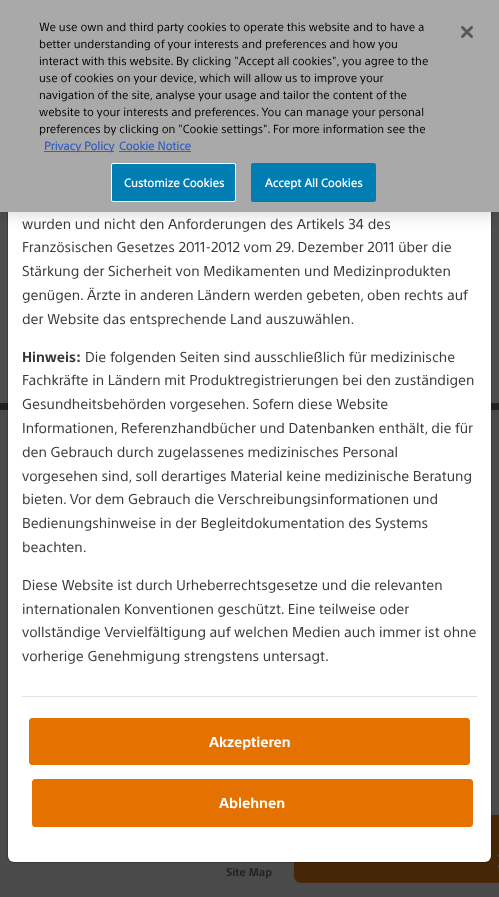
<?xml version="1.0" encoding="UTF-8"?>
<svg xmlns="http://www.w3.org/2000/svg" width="499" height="897">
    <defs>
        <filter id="blur1" x="-50%" y="-200%" width="200%" height="500%"><feGaussianBlur stdDeviation="9"/></filter>
    </defs>
    <rect width="100%" height="100%" fill="#4D4D4D"/>
    <rect x="0" y="410" width="499" height="487" fill="#4A4A4A"/>
    <path d="M 301 815 H 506 V 883 H 301 C 297 883 294 880 294 876 V 822 C 294 818 297 815 301 815 Z" fill="#452200" fill-opacity="0.9"/>
    <rect x="0" y="403" width="499" height="7" fill="#202325"/>
    <rect x="8" y="8" width="483" height="854" rx="6" fill="#FFFFFF"/>
    <rect x="7.5" y="7.5" width="484" height="855" rx="6.5" fill="none" stroke="#000000" stroke-opacity="0.2"/>
    <rect x="0" y="0" width="499" height="212" fill="#000000" fill-opacity="0.2" filter="url(#blur1)"/>
    <rect x="0" y="0" width="499" height="212" fill="#A9A9A9"/>
    <text font-family="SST" font-size="11.4" fill="#000000">
        <tspan x="39" y="31">We use own and third party cookies to operate this website and to have a</tspan>
        <tspan x="39" y="48">better understanding of your interests and preferences and how you</tspan>
        <tspan x="39" y="65">interact with this website. By clicking "Accept all cookies", you agree to the</tspan>
        <tspan x="39" y="82">use of cookies on your device, which will allow us to improve your</tspan>
        <tspan x="39" y="99">navigation of the site, analyse your usage and tailor the content of the</tspan>
        <tspan x="39" y="116">website to your interests and preferences. You can manage your personal</tspan>
        <tspan x="39" y="133">preferences by clicking on "Cookie settings". For more information see the</tspan>
    </text>
    <rect x="44" y="151" width="70" height="1" fill="#3860BE"/>
    <text x="44" y="150" font-family="'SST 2'" font-size="11.4" font-weight="700" fill="#3860BE">Privacy Policy</text>
    <text x="119" y="150" font-family="'SST 2'" font-size="11.4" font-weight="700" fill="#3860BE">Cookie Notice</text>
    <rect x="119" y="151" width="72" height="1" fill="#3860BE"/>
    <rect x="111.5" y="163.5" width="124" height="38" rx="1.5" fill="#007DB3" stroke="#FFFFFF"/>
    <text x="124" y="187" font-family="'SST 2'" font-size="11.4" font-weight="700" letter-spacing="0.1" fill="#FFFFFF">Customize Cookies</text>
    <rect x="251.5" y="163.5" width="124" height="38" rx="1.5" fill="#007DB3" stroke="#007DB3"/>
    <text x="265" y="187" font-family="'SST 2'" font-size="11.4" font-weight="700" letter-spacing="0.1" fill="#FFFFFF">Accept All Cookies</text>
    <image x="461" y="26" width="12" height="12" href="img_01.png"/>
    <rect x="22" y="696" width="455" height="1" fill="#E1E3E5"/>
    <text font-family="SST" font-size="14" fill="#383838">
        <tspan x="22" y="229">wurden und nicht den Anforderungen des Artikels 34 des</tspan>
        <tspan x="22" y="252">Französischen Gesetzes 2011-2012 vom 29. Dezember 2011 über die</tspan>
        <tspan x="22" y="276">Stärkung der Sicherheit von Medikamenten und Medizinprodukten</tspan>
        <tspan x="22" y="300">genügen. Ärzte in anderen Ländern werden gebeten, oben rechts auf</tspan>
        <tspan x="22" y="324">der Website das entsprechende Land auszuwählen.</tspan>
    </text>
    <text x="22" y="362" font-family="SST" font-size="14" font-weight="700" fill="#383838">Hinweis:</text>
    <text x="85" y="362" font-family="SST" font-size="14" fill="#383838">Die folgenden Seiten sind ausschließlich für medizinische</text>
    <text font-family="SST" font-size="14" fill="#383838">
        <tspan x="22" y="385">Fachkräfte in Ländern mit Produktregistrierungen bei den zuständigen</tspan>
        <tspan x="22" y="409">Gesundheitsbehörden vorgesehen. Sofern diese Website</tspan>
        <tspan x="22" y="433">Informationen, Referenzhandbücher und Datenbanken enthält, die für</tspan>
        <tspan x="22" y="457">den Gebrauch durch zugelassenes medizinisches Personal</tspan>
        <tspan x="22" y="481">vorgesehen sind, soll derartiges Material keine medizinische Beratung</tspan>
        <tspan x="22" y="504">bieten. Vor dem Gebrauch die Verschreibungsinformationen und</tspan>
        <tspan x="22" y="528">Bedienungshinweise in der Begleitdokumentation des Systems</tspan>
        <tspan x="22" y="552">beachten.</tspan>
    </text>
    <text font-family="SST" font-size="14" fill="#383838">
        <tspan x="22" y="590">Diese Website ist durch Urheberrechtsgesetze und die relevanten</tspan>
        <tspan x="22" y="614">internationalen Konventionen geschützt. Eine teilweise oder</tspan>
        <tspan x="22" y="637">vollständige Vervielfältigung auf welchen Medien auch immer ist ohne</tspan>
        <tspan x="22" y="661">vorherige Genehmigung strengstens untersagt.</tspan>
    </text>
    <rect x="29.5" y="718.5" width="440" height="46" rx="2.5" fill="#E57200" stroke="#E57200"/>
    <text x="209" y="747" font-family="SST" font-size="14" font-weight="700" fill="#FFFFFF">Akzeptieren</text>
    <rect x="32.5" y="779.5" width="440" height="47" rx="2.5" fill="#E57200" stroke="#E57200"/>
    <text x="219" y="808" font-family="SST" font-size="14" font-weight="700" fill="#FFFFFF">Ablehnen</text>
    <image x="497" y="854" width="2" height="14" href="img_02.png"/>
    <text x="226" y="876" font-family="SST" font-size="11" font-weight="700" fill="#202325">Site Map</text>
</svg>
